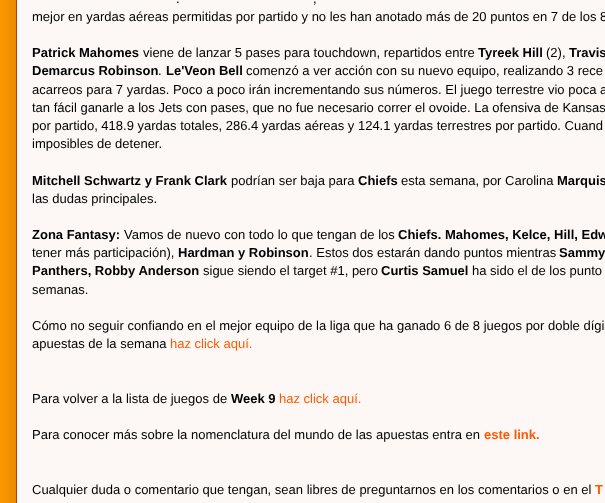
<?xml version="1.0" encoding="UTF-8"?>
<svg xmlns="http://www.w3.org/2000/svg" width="605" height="503">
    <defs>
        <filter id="blur1" x="-50%" y="-200%" width="200%" height="500%"><feGaussianBlur stdDeviation="10"/></filter>
    </defs>
    <rect width="100%" height="100%" fill="#FF9900"/>
    <rect x="16" y="-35" width="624" height="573" rx="5" fill="#000000" fill-opacity="0.2" filter="url(#blur1)"/>
    <rect x="16.5" y="-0.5" width="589" height="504" fill="#FDF7F6" stroke="#9E451F"/>
    <text x="176" y="3" font-family="Liberation Sans" font-size="13" fill="#000000">.</text>
    <text x="313" y="3" font-family="Liberation Sans" font-size="13" fill="#000000">,</text>
    <text x="32" y="21" font-family="Liberation Sans" font-size="13" fill="#000000">mejor en yardas aéreas permitidas por partido y no les han anotado más de 20 puntos en 7 de los 8</text>
    <text x="32" y="57" font-family="Liberation Sans" font-size="13" font-weight="700" fill="#000000">Patrick Mahomes</text>
    <text x="143" y="57" font-family="Liberation Sans" font-size="13" fill="#000000">viene de lanzar 5 pases para touchdown, repartidos entre</text>
    <text x="478" y="57" font-family="Liberation Sans" font-size="13" font-weight="700" fill="#000000">Tyreek Hill</text>
    <text x="546" y="57" font-family="Liberation Sans" font-size="13" fill="#000000">(2),</text>
    <text x="569" y="57" font-family="Liberation Sans" font-size="13" font-weight="700" fill="#000000">Travis</text>
    <text x="32" y="75" font-family="Liberation Sans" font-size="13" font-weight="700" fill="#000000">Demarcus Robinson</text>
    <text x="158" y="75" font-family="Liberation Sans" font-size="13" fill="#000000">.</text>
    <text x="166" y="75" font-family="Liberation Sans" font-size="13" font-weight="700" fill="#000000">Le'Veon Bell</text>
    <text x="246" y="75" font-family="Liberation Sans" font-size="13" fill="#000000">comenzó a ver acción con su nuevo equipo, realizando 3 rece</text>
    <text font-family="Liberation Sans" font-size="13" fill="#000000">
        <tspan x="32" y="94">acarreos para 7 yardas. Poco a poco irán incrementando sus números. El juego terrestre vio poca a</tspan>
        <tspan x="32" y="112">tan fácil ganarle a los Jets con pases, que no fue necesario correr el ovoide. La ofensiva de Kansas</tspan>
        <tspan x="32" y="130">por partido, 418.9 yardas totales, 286.4 yardas aéreas y 124.1 yardas terrestres por partido. Cuand</tspan>
        <tspan x="32" y="148">imposibles de detener.</tspan>
    </text>
    <text x="32" y="185" font-family="Liberation Sans" font-size="13" font-weight="700" fill="#000000">Mitchell Schwartz y Frank Clark</text>
    <text x="231" y="185" font-family="Liberation Sans" font-size="13" fill="#000000">podrían ser baja para</text>
    <text x="358" y="185" font-family="Liberation Sans" font-size="13" font-weight="700" fill="#000000">Chiefs</text>
    <text x="401" y="185" font-family="Liberation Sans" font-size="13" fill="#000000">esta semana, por Carolina</text>
    <text x="557" y="185" font-family="Liberation Sans" font-size="13" font-weight="700" fill="#000000">Marquis</text>
    <text x="32" y="203" font-family="Liberation Sans" font-size="13" fill="#000000">las dudas principales.</text>
    <text x="32" y="239" font-family="Liberation Sans" font-size="13" font-weight="700" fill="#000000">Zona Fantasy:</text>
    <text x="124" y="239" font-family="Liberation Sans" font-size="13" fill="#000000">Vamos de nuevo con todo lo que tengan de los</text>
    <text x="398" y="239" font-family="Liberation Sans" font-size="13" font-weight="700" fill="#000000">Chiefs. Mahomes, Kelce, Hill, Edw</text>
    <text x="32" y="257" font-family="Liberation Sans" font-size="13" fill="#000000">tener más participación),</text>
    <text x="178" y="257" font-family="Liberation Sans" font-size="13" font-weight="700" fill="#000000">Hardman y Robinson</text>
    <text x="309" y="257" font-family="Liberation Sans" font-size="13" fill="#000000">. Estos dos estarán dando puntos mientras</text>
    <text x="559" y="257" font-family="Liberation Sans" font-size="13" font-weight="700" fill="#000000">Sammy</text>
    <text x="32" y="275" font-family="Liberation Sans" font-size="13" font-weight="700" fill="#000000">Panthers, Robby Anderson</text>
    <text x="203" y="275" font-family="Liberation Sans" font-size="13" fill="#000000">sigue siendo el target #1, pero</text>
    <text x="381" y="275" font-family="Liberation Sans" font-size="13" font-weight="700" fill="#000000">Curtis Samuel</text>
    <text x="472" y="275" font-family="Liberation Sans" font-size="13" fill="#000000">ha sido el de los punto</text>
    <text x="32" y="294" font-family="Liberation Sans" font-size="13" fill="#000000">semanas.</text>
    <text font-family="Liberation Sans" font-size="13" fill="#000000">
        <tspan x="32" y="330">Cómo no seguir confiando en el mejor equipo de la liga que ha ganado 6 de 8 juegos por doble dígi</tspan>
        <tspan x="32" y="348">apuestas de la semana</tspan>
    </text>
    <text x="170" y="348" font-family="Liberation Sans" font-size="13" fill="#FF5900">haz click aquí.</text>
    <text x="32" y="403" font-family="Liberation Sans" font-size="13" fill="#000000">Para volver a la lista de juegos de</text>
    <text x="231" y="403" font-family="Liberation Sans" font-size="13" font-weight="700" fill="#000000">Week 9</text>
    <text x="279" y="403" font-family="Liberation Sans" font-size="13" fill="#FF5900">haz click aquí.</text>
    <text x="32" y="439" font-family="Liberation Sans" font-size="13" fill="#000000">Para conocer más sobre la nomenclatura del mundo de las apuestas entra en</text>
    <text x="484" y="439" font-family="Liberation Sans" font-size="13" font-weight="700" fill="#FF5900">este link.</text>
    <text x="32" y="494" font-family="Liberation Sans" font-size="13" fill="#000000">Cualquier duda o comentario que tengan, sean libres de preguntarnos en los comentarios o en el</text>
    <text x="595" y="494" font-family="Liberation Sans" font-size="13" font-weight="700" fill="#FF5900">T</text>
</svg>
